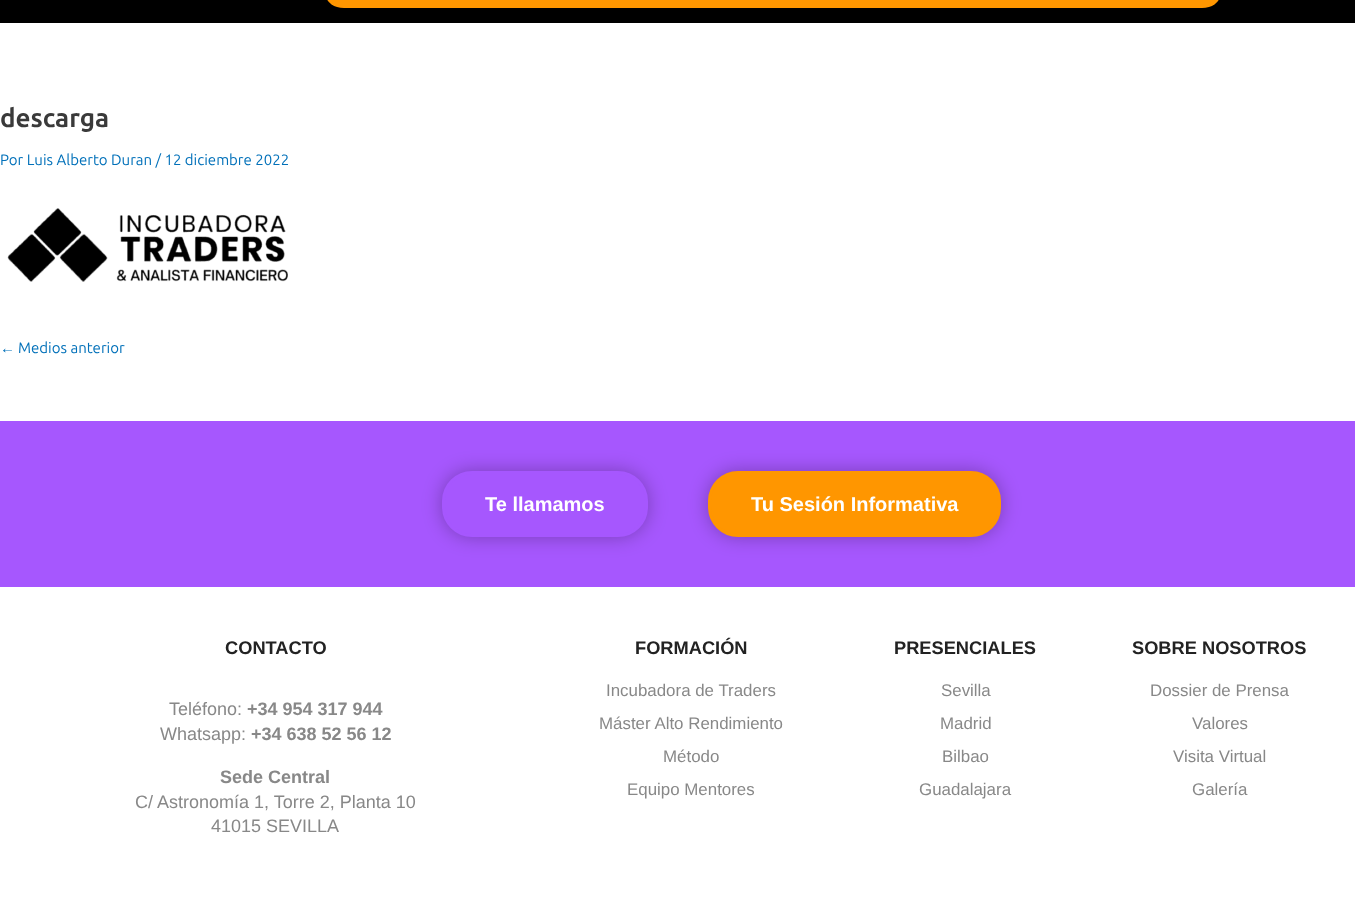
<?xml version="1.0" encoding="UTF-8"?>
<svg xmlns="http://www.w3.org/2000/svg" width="1355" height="899">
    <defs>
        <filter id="blur1" x="-50%" y="-200%" width="200%" height="500%"><feGaussianBlur stdDeviation="9.5"/></filter>
    </defs>
    <rect width="100%" height="100%" fill="#FFFFFF"/>
    <rect x="0" y="0" width="1355" height="23" fill="#000000"/>
    <rect x="326" y="-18" width="894" height="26" rx="18" fill="#FF9600"/>
    <text x="0" y="127" font-family="Ubuntu" font-size="26" font-weight="700" fill="#3A3A3A">descarga</text>
    <text x="0" y="165" font-family="Ubuntu" font-size="15" fill="#0170B9">Por Luis Alberto Duran / 12 diciembre 2022</text>
    <image x="7" y="208" width="281" height="74" href="img_01.png"/>
    <text x="0" y="353" font-family="Liberation Sans" font-size="15" fill="#0170B9">←</text>
    <text x="18" y="353" font-family="Ubuntu" font-size="15" fill="#0170B9">Medios anterior</text>
    <rect x="0" y="421" width="1355" height="166" fill="#A657FE"/>
    <rect x="442" y="471" width="206" height="66" rx="30" fill="#000000" fill-opacity="0.28" filter="url(#blur1)"/>
    <rect x="443.5" y="472.5" width="203" height="63" rx="28.5" fill="#A657FE" stroke="#A657FE" stroke-width="3"/>
    <text x="485" y="511" font-family="Liberation Sans" font-size="20" font-weight="700" fill="#FFFFFF">Te llamamos</text>
    <rect x="708" y="471" width="293" height="66" rx="30" fill="#000000" fill-opacity="0.28" filter="url(#blur1)"/>
    <rect x="709.5" y="472.5" width="290" height="63" rx="28.5" fill="#FF9600" stroke="#FF9600" stroke-width="3"/>
    <text x="751" y="511" font-family="Liberation Sans" font-size="20" font-weight="700" fill="#FFFFFF">Tu Sesión Informativa</text>
    <text x="225" y="654" font-family="Liberation Sans" font-size="18.25" font-weight="700" fill="#222222">CONTACTO</text>
    <text x="169" y="715" font-family="Liberation Sans" font-size="18" fill="#888888">Teléfono:</text>
    <text x="247" y="715" font-family="Liberation Sans" font-size="18" font-weight="700" fill="#888888">+34 954 317 944</text>
    <text x="160" y="740" font-family="Liberation Sans" font-size="18" fill="#888888">Whatsapp:</text>
    <text x="251" y="740" font-family="Liberation Sans" font-size="18" font-weight="700" fill="#888888">+34 638 52 56 12</text>
    <text x="220" y="783" font-family="Liberation Sans" font-size="18" font-weight="700" fill="#888888">Sede Central</text>
    <text x="135" y="808" font-family="Liberation Sans" font-size="18" fill="#888888">C/ Astronomía 1, Torre 2, Planta 10</text>
    <text x="211" y="832" font-family="Liberation Sans" font-size="18" fill="#888888">41015 SEVILLA</text>
    <text x="635" y="654" font-family="Liberation Sans" font-size="18.25" font-weight="700" fill="#222222">FORMACIÓN</text>
    <text x="606" y="696" font-family="Liberation Sans" font-size="16.9" fill="#888888">Incubadora de Traders</text>
    <text x="599" y="729" font-family="Liberation Sans" font-size="16.9" fill="#888888">Máster Alto Rendimiento</text>
    <text x="663" y="762" font-family="Liberation Sans" font-size="16.9" fill="#888888">Método</text>
    <text x="627" y="795" font-family="Liberation Sans" font-size="16.9" fill="#888888">Equipo Mentores</text>
    <text x="894" y="654" font-family="Liberation Sans" font-size="18.25" font-weight="700" fill="#222222">PRESENCIALES</text>
    <text x="941" y="696" font-family="Liberation Sans" font-size="16.9" fill="#888888">Sevilla</text>
    <text x="940" y="729" font-family="Liberation Sans" font-size="16.9" fill="#888888">Madrid</text>
    <text x="942" y="762" font-family="Liberation Sans" font-size="16.9" fill="#888888">Bilbao</text>
    <text x="919" y="795" font-family="Liberation Sans" font-size="16.9" fill="#888888">Guadalajara</text>
    <text x="1132" y="654" font-family="Liberation Sans" font-size="18.25" font-weight="700" fill="#222222">SOBRE NOSOTROS</text>
    <text x="1150" y="696" font-family="Liberation Sans" font-size="16.9" fill="#888888">Dossier de Prensa</text>
    <text x="1192" y="729" font-family="Liberation Sans" font-size="16.9" fill="#888888">Valores</text>
    <text x="1173" y="762" font-family="Liberation Sans" font-size="16.9" fill="#888888">Visita Virtual</text>
    <text x="1192" y="795" font-family="Liberation Sans" font-size="16.9" fill="#888888">Galería</text>
</svg>
